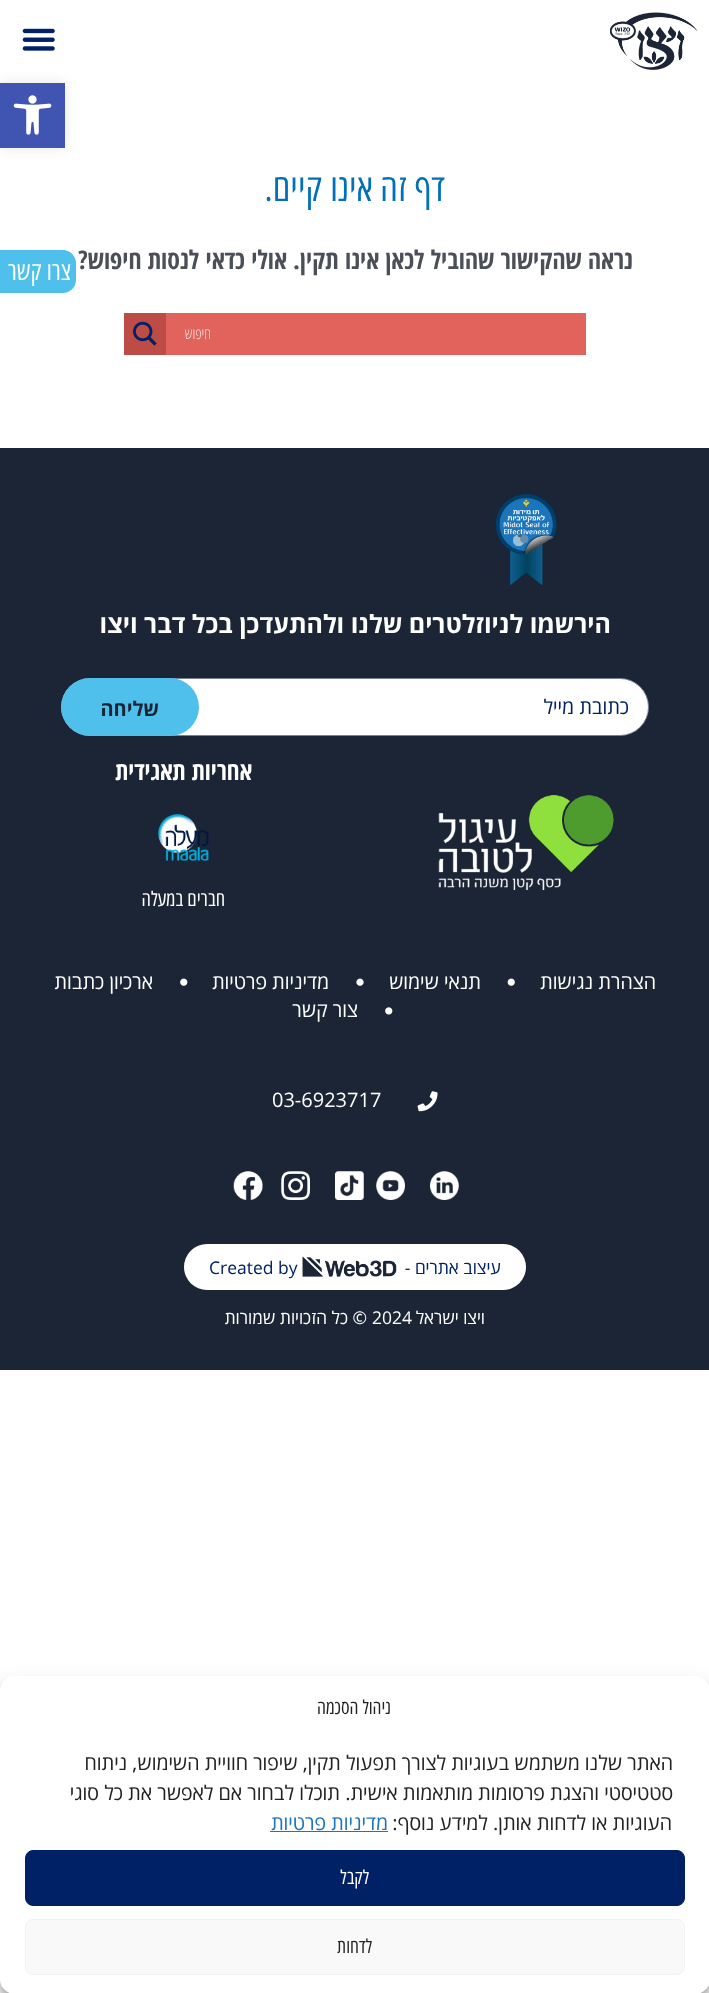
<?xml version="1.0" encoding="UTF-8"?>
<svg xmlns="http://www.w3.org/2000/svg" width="709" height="1993">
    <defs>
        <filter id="blur1" x="-50%" y="-200%" width="200%" height="500%"><feGaussianBlur stdDeviation="6"/></filter>
        <filter id="blur2" x="-50%" y="-200%" width="200%" height="500%"><feGaussianBlur stdDeviation="4"/></filter>
        <filter id="blur3" x="-50%" y="-200%" width="200%" height="500%"><feGaussianBlur stdDeviation="12.5"/></filter>
    </defs>
    <rect width="100%" height="100%" fill="#FFFFFF"/>
    <rect x="0" y="83" width="65" height="65" fill="#000000" fill-opacity="0.1" filter="url(#blur1)"/>
    <rect x="0" y="83" width="65" height="65" fill="#4054B2"/>
    <image x="13" y="95" width="39" height="40" href="img_01.png"/>
    <text x="445" y="201" font-family="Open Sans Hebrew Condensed" font-size="37.5" direction="rtl" fill="#0170B9">דף זה אינו קיים.</text>
    <text x="633" y="269" font-family="Open Sans Hebrew Condensed" font-size="25.65" font-weight="700" direction="rtl" fill="#4B4F58">נראה שהקישור שהוביל לכאן אינו תקין. אולי כדאי לנסות חיפוש?</text>
    <rect x="166" y="313" width="420" height="42" fill="#E1635C"/>
    <text x="211" y="339" font-family="Open Sans Hebrew Condensed" font-size="15" font-weight="300" direction="rtl" fill="#FBE8E7">חיפוש</text>
    <rect x="124" y="313" width="42" height="42" fill="#BE4C46"/>
    <image x="133" y="321" width="24" height="25" href="img_02.png"/>
    <image x="610" y="12" width="88" height="58" href="img_03.png"/>
    <image x="22" y="28" width="33" height="23" href="img_04.png"/>
    <path d="M 0 250 H 63 C 70 250 76 256 76 263 V 280 C 76 287 70 293 63 293 H 0 Z" fill="#4FC0EB"/>
    <text x="71" y="280" font-family="Open Sans Hebrew Condensed" font-size="25" direction="rtl" fill="#FFFFFF">צרו קשר</text>
    <rect x="0" y="448" width="709" height="922" fill="#1B2535"/>
    <image x="495" y="494" width="62" height="91" href="img_05.png"/>
    <text x="611" y="633" font-family="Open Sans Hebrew" font-size="25" font-weight="700" direction="rtl" fill="#FFFFFF">הירשמו לניוזלטרים שלנו ולהתעדכן בכל דבר ויצו</text>
    <rect x="61.5" y="678.5" width="587" height="57" rx="28.5" fill="#FFFFFF" stroke="#77809A"/>
    <text x="629" y="714" font-family="Open Sans Hebrew" font-size="20" direction="rtl" fill="#002165">כתובת מייל</text>
    <rect x="61" y="678" width="138" height="58" rx="29" fill="#4FC0EB"/>
    <text x="159" y="716" font-family="Open Sans Hebrew" font-size="20" font-weight="700" direction="rtl" fill="#1B2535">שליחה</text>
    <image x="438" y="795" width="176" height="95" href="img_06.png"/>
    <text x="252" y="780" font-family="Open Sans Hebrew Condensed" font-size="25" font-weight="700" direction="rtl" fill="#FFFFFF">אחריות תאגידית</text>
    <image x="158" y="813" width="51" height="48" href="img_07.png"/>
    <text x="225" y="906" font-family="Open Sans Hebrew Condensed" font-size="20" direction="rtl" fill="#FFFFFF">חברים במעלה</text>
    <text x="656" y="989" font-family="Open Sans Hebrew" font-size="20" direction="rtl" fill="#FFFFFF">הצהרת נגישות</text>
    <image x="507" y="978" width="8" height="8" href="img_08.png"/>
    <text x="481" y="989" font-family="Open Sans Hebrew" font-size="20" direction="rtl" fill="#FFFFFF">תנאי שימוש</text>
    <image x="356" y="978" width="8" height="8" href="img_09.png"/>
    <text x="329" y="989" font-family="Open Sans Hebrew" font-size="20" direction="rtl" fill="#FFFFFF">מדיניות פרטיות</text>
    <image x="180" y="978" width="8" height="8" href="img_10.png"/>
    <text x="153" y="989" font-family="Open Sans Hebrew" font-size="20" direction="rtl" fill="#FFFFFF">ארכיון כתבות</text>
    <image x="385" y="1007" width="8" height="8" href="img_11.png"/>
    <text x="358" y="1017" font-family="Open Sans Hebrew" font-size="20" direction="rtl" fill="#FFFFFF">צור קשר</text>
    <image x="417" y="1091" width="21" height="21" href="img_12.png"/>
    <text x="272" y="1107" font-family="Open Sans Hebrew" font-size="20" fill="#FFFFFF">03-6923717</text>
    <image x="430" y="1171" width="29" height="29" href="img_13.png"/>
    <image x="376" y="1171" width="29" height="29" href="img_14.png"/>
    <image x="335" y="1171" width="29" height="29" href="img_15.png"/>
    <image x="281" y="1171" width="29" height="29" href="img_16.png"/>
    <image x="233" y="1171" width="30" height="29" href="img_17.png"/>
    <rect x="184" y="1244" width="342" height="46" rx="23" fill="#FFFFFF"/>
    <text x="501" y="1274" font-family="Open Sans Hebrew" font-size="17.5" direction="rtl" fill="#002165">עיצוב אתרים -</text>
    <image x="302" y="1256" width="95" height="21" href="img_18.png"/>
    <text x="209" y="1274" font-family="Open Sans Hebrew" font-size="17.5" fill="#002165">Created by</text>
    <text x="485" y="1324" font-family="Open Sans Hebrew" font-size="17.5" direction="rtl" fill="#FFFFFF">ויצו ישראל</text>
    <text x="372" y="1324" font-family="Open Sans Hebrew" font-size="17.5" fill="#FFFFFF">2024</text>
    <text x="367" y="1324" font-family="Open Sans Hebrew" font-size="17.5" direction="rtl" fill="#FFFFFF">© כל הזכויות שמורות</text>
    <rect x="0" y="1684" width="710" height="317" rx="15" fill="#000000" fill-opacity="0.23" filter="url(#blur2)"/>
    <rect x="0" y="1689" width="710" height="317" rx="15" fill="#000000" fill-opacity="0.19" filter="url(#blur3)"/>
    <rect x="0" y="1676" width="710" height="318" rx="15" fill="#FFFFFF"/>
    <text x="391" y="1714" font-family="Open Sans Hebrew Condensed" font-size="19" direction="rtl" fill="#222222">ניהול הסכמה</text>
    <text font-family="Open Sans Hebrew" font-size="20" direction="rtl" fill="#222222">
        <tspan x="673" y="1770">האתר שלנו משתמש בעוגיות לצורך תפעול תקין, שיפור חוויית השימוש, ניתוח</tspan>
        <tspan x="673" y="1800">סטטיסטי והצגת פרסומות מותאמות אישית. תוכלו לבחור אם לאפשר את כל סוגי</tspan>
    </text>
    <text x="672" y="1830" font-family="Open Sans Hebrew" font-size="20" direction="rtl" fill="#222222">העוגיות או לדחות אותן. למידע נוסף:</text>
    <text x="388" y="1830" font-family="Open Sans Hebrew" font-size="20" direction="rtl" fill="#1E73BE">מדיניות פרטיות</text>
    <rect x="270" y="1831" width="118" height="1" fill="#1E73BE"/>
    <rect x="25.5" y="1850.5" width="659" height="55" rx="7.5" fill="#002165" stroke="#002165"/>
    <text x="369" y="1884" font-family="Open Sans Hebrew Condensed" font-size="19" direction="rtl" fill="#FFFFFF">לקבל</text>
    <rect x="25.5" y="1919.5" width="659" height="55" rx="7.5" fill="#F9F9F9" stroke="#F2F2F2"/>
    <text x="372" y="1953" font-family="Open Sans Hebrew Condensed" font-size="19" direction="rtl" fill="#222222">לדחות</text>
</svg>
